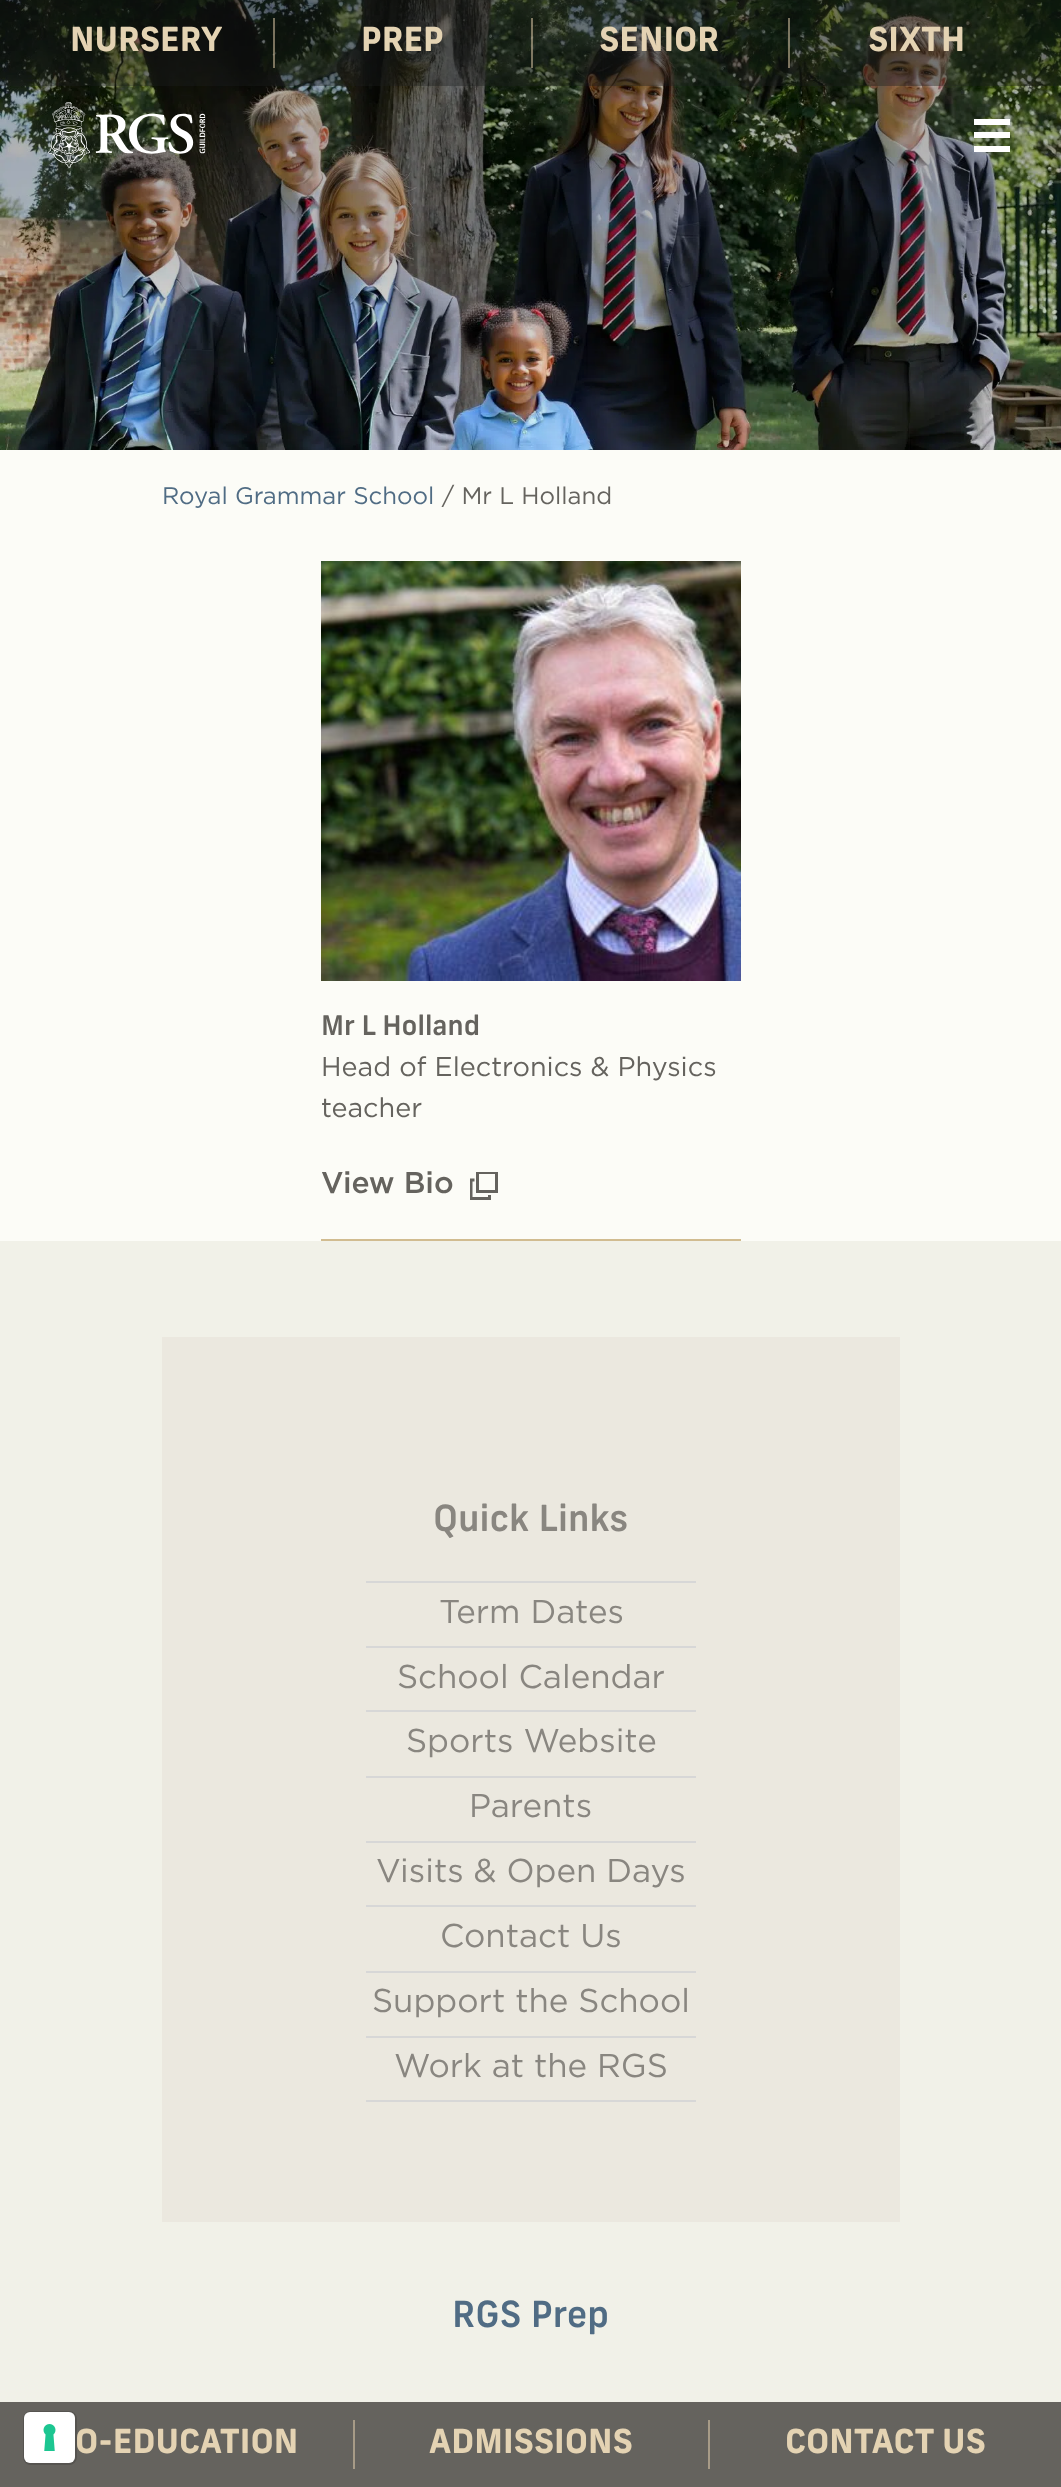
<?xml version="1.0" encoding="UTF-8"?>
<svg xmlns="http://www.w3.org/2000/svg" width="1061" height="2487">
    <defs>
        <clipPath id="clip1"><rect x="470" y="1172" width="28" height="28"/></clipPath>
    </defs>
    <rect width="100%" height="100%" fill="#FCFCF7"/>
    <rect x="0" y="2402" width="1061" height="85" fill="#65635E"/>
    <rect x="24" y="2412" width="52" height="52" rx="7" fill="none" stroke="#565450" stroke-width="2"/>
    <rect x="24" y="2412" width="51" height="51" rx="6" fill="#FFFFFF"/>
    <image x="43" y="2424" width="13" height="27" href="img_01.png"/>
    <image x="0" y="0" width="1061" height="450" href="img_02.png"/>
    <rect x="0" y="0" width="1061" height="86" fill="#1C1F1E" fill-opacity="0.4"/>
    <text x="70" y="51" font-family="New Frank" font-size="33" font-weight="700" fill="#E4D3B3">NURSERY</text>
    <rect x="273" y="18" width="2" height="50" fill="#E8D2B0" fill-opacity="0.5"/>
    <text x="361" y="51" font-family="New Frank" font-size="33" font-weight="700" fill="#E4D3B3">PREP</text>
    <rect x="531" y="18" width="2" height="50" fill="#E8D2B0" fill-opacity="0.5"/>
    <text x="599" y="51" font-family="New Frank" font-size="33" font-weight="700" fill="#E4D3B3">SENIOR</text>
    <rect x="788" y="18" width="2" height="50" fill="#E8D2B0" fill-opacity="0.5"/>
    <text x="868" y="51" font-family="New Frank" font-size="33" font-weight="700" fill="#E4D3B3">SIXTH</text>
    <image x="48" y="102" width="158" height="66" href="img_03.png"/>
    <rect x="974" y="132" width="36" height="6" fill="#FFFFFF"/>
    <rect x="974" y="119" width="36" height="6" fill="#FFFFFF"/>
    <rect x="974" y="146" width="36" height="6" fill="#FFFFFF"/>
    <text x="75" y="2453" font-family="New Frank" font-size="33" font-weight="700" fill="#E4D3B3">O-EDUCATION</text>
    <rect x="353" y="2420" width="2" height="49" fill="#A79B87"/>
    <text x="429" y="2453" font-family="New Frank" font-size="33" font-weight="700" fill="#E4D3B3">ADMISSIONS</text>
    <rect x="708" y="2420" width="2" height="49" fill="#A79B87"/>
    <text x="785" y="2453" font-family="New Frank" font-size="33" font-weight="700" fill="#E4D3B3">CONTACT US</text>
    <text x="162" y="504" font-family="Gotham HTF" font-size="24" fill="#506C84">Royal Grammar School</text>
    <text x="442" y="504" font-family="Gotham HTF" font-size="24" fill="#65635E">/ Mr L Holland</text>
    <rect x="321" y="1239" width="420" height="2" fill="#D1BC90"/>
    <image x="321" y="561" width="420" height="420" href="img_04.png"/>
    <text x="321" y="1035" font-family="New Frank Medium" font-size="27" font-weight="500" fill="#65635E">Mr L Holland</text>
    <text font-family="Gotham HTF" font-size="27" fill="#65635E">
        <tspan x="321" y="1076">Head of Electronics &amp; Physics</tspan>
        <tspan x="321" y="1117">teacher</tspan>
    </text>
    <text x="321" y="1193" font-family="Gotham HTF" font-size="30" font-weight="500" fill="#65635E">View Bio</text>
    <g clip-path="url(#clip1)">
        <path d="M 489.5 1195 V 1198.5 H 471 V 1180 H 474.5" fill="none" stroke="#65635E" stroke-width="3"/>
        <rect x="477.5" y="1172.5" width="19" height="19" fill="none" stroke="#65635E" stroke-width="3"/>
    </g>
    <rect x="0" y="1241" width="1061" height="1161" fill="#F1F1E8"/>
    <rect x="162" y="1337" width="738" height="885" fill="#EBE8DF"/>
    <text x="433" y="1531" font-family="New Frank Medium" font-size="36" font-weight="500" fill="#898680">Quick Links</text>
    <rect x="366" y="2100" width="330" height="2" fill="#D7D7D7"/>
    <rect x="366" y="1581" width="330" height="2" fill="#D7D7D7"/>
    <text x="439" y="1623" font-family="Gotham HTF" font-size="33" fill="#898680">Term Dates</text>
    <rect x="366" y="1646" width="330" height="2" fill="#D7D7D7"/>
    <text x="397" y="1688" font-family="Gotham HTF" font-size="33" fill="#898680">School Calendar</text>
    <rect x="366" y="1710" width="330" height="2" fill="#D7D7D7"/>
    <text x="406" y="1752" font-family="Gotham HTF" font-size="33" fill="#898680">Sports Website</text>
    <rect x="366" y="1776" width="330" height="2" fill="#D7D7D7"/>
    <text x="469" y="1817" font-family="Gotham HTF" font-size="33" fill="#898680">Parents</text>
    <rect x="366" y="1841" width="330" height="2" fill="#D7D7D7"/>
    <text x="376" y="1882" font-family="Gotham HTF" font-size="33" fill="#898680">Visits &amp; Open Days</text>
    <rect x="366" y="1905" width="330" height="2" fill="#D7D7D7"/>
    <text x="440" y="1947" font-family="Gotham HTF" font-size="33" fill="#898680">Contact Us</text>
    <rect x="366" y="1971" width="330" height="2" fill="#D7D7D7"/>
    <text x="372" y="2012" font-family="Gotham HTF" font-size="33" fill="#898680">Support the School</text>
    <rect x="366" y="2036" width="330" height="2" fill="#D7D7D7"/>
    <text x="394" y="2077" font-family="Gotham HTF" font-size="33" fill="#898680">Work at the RGS</text>
    <text x="452" y="2327" font-family="New Frank Medium" font-size="36" font-weight="500" fill="#506C84">RGS Prep</text>
</svg>
